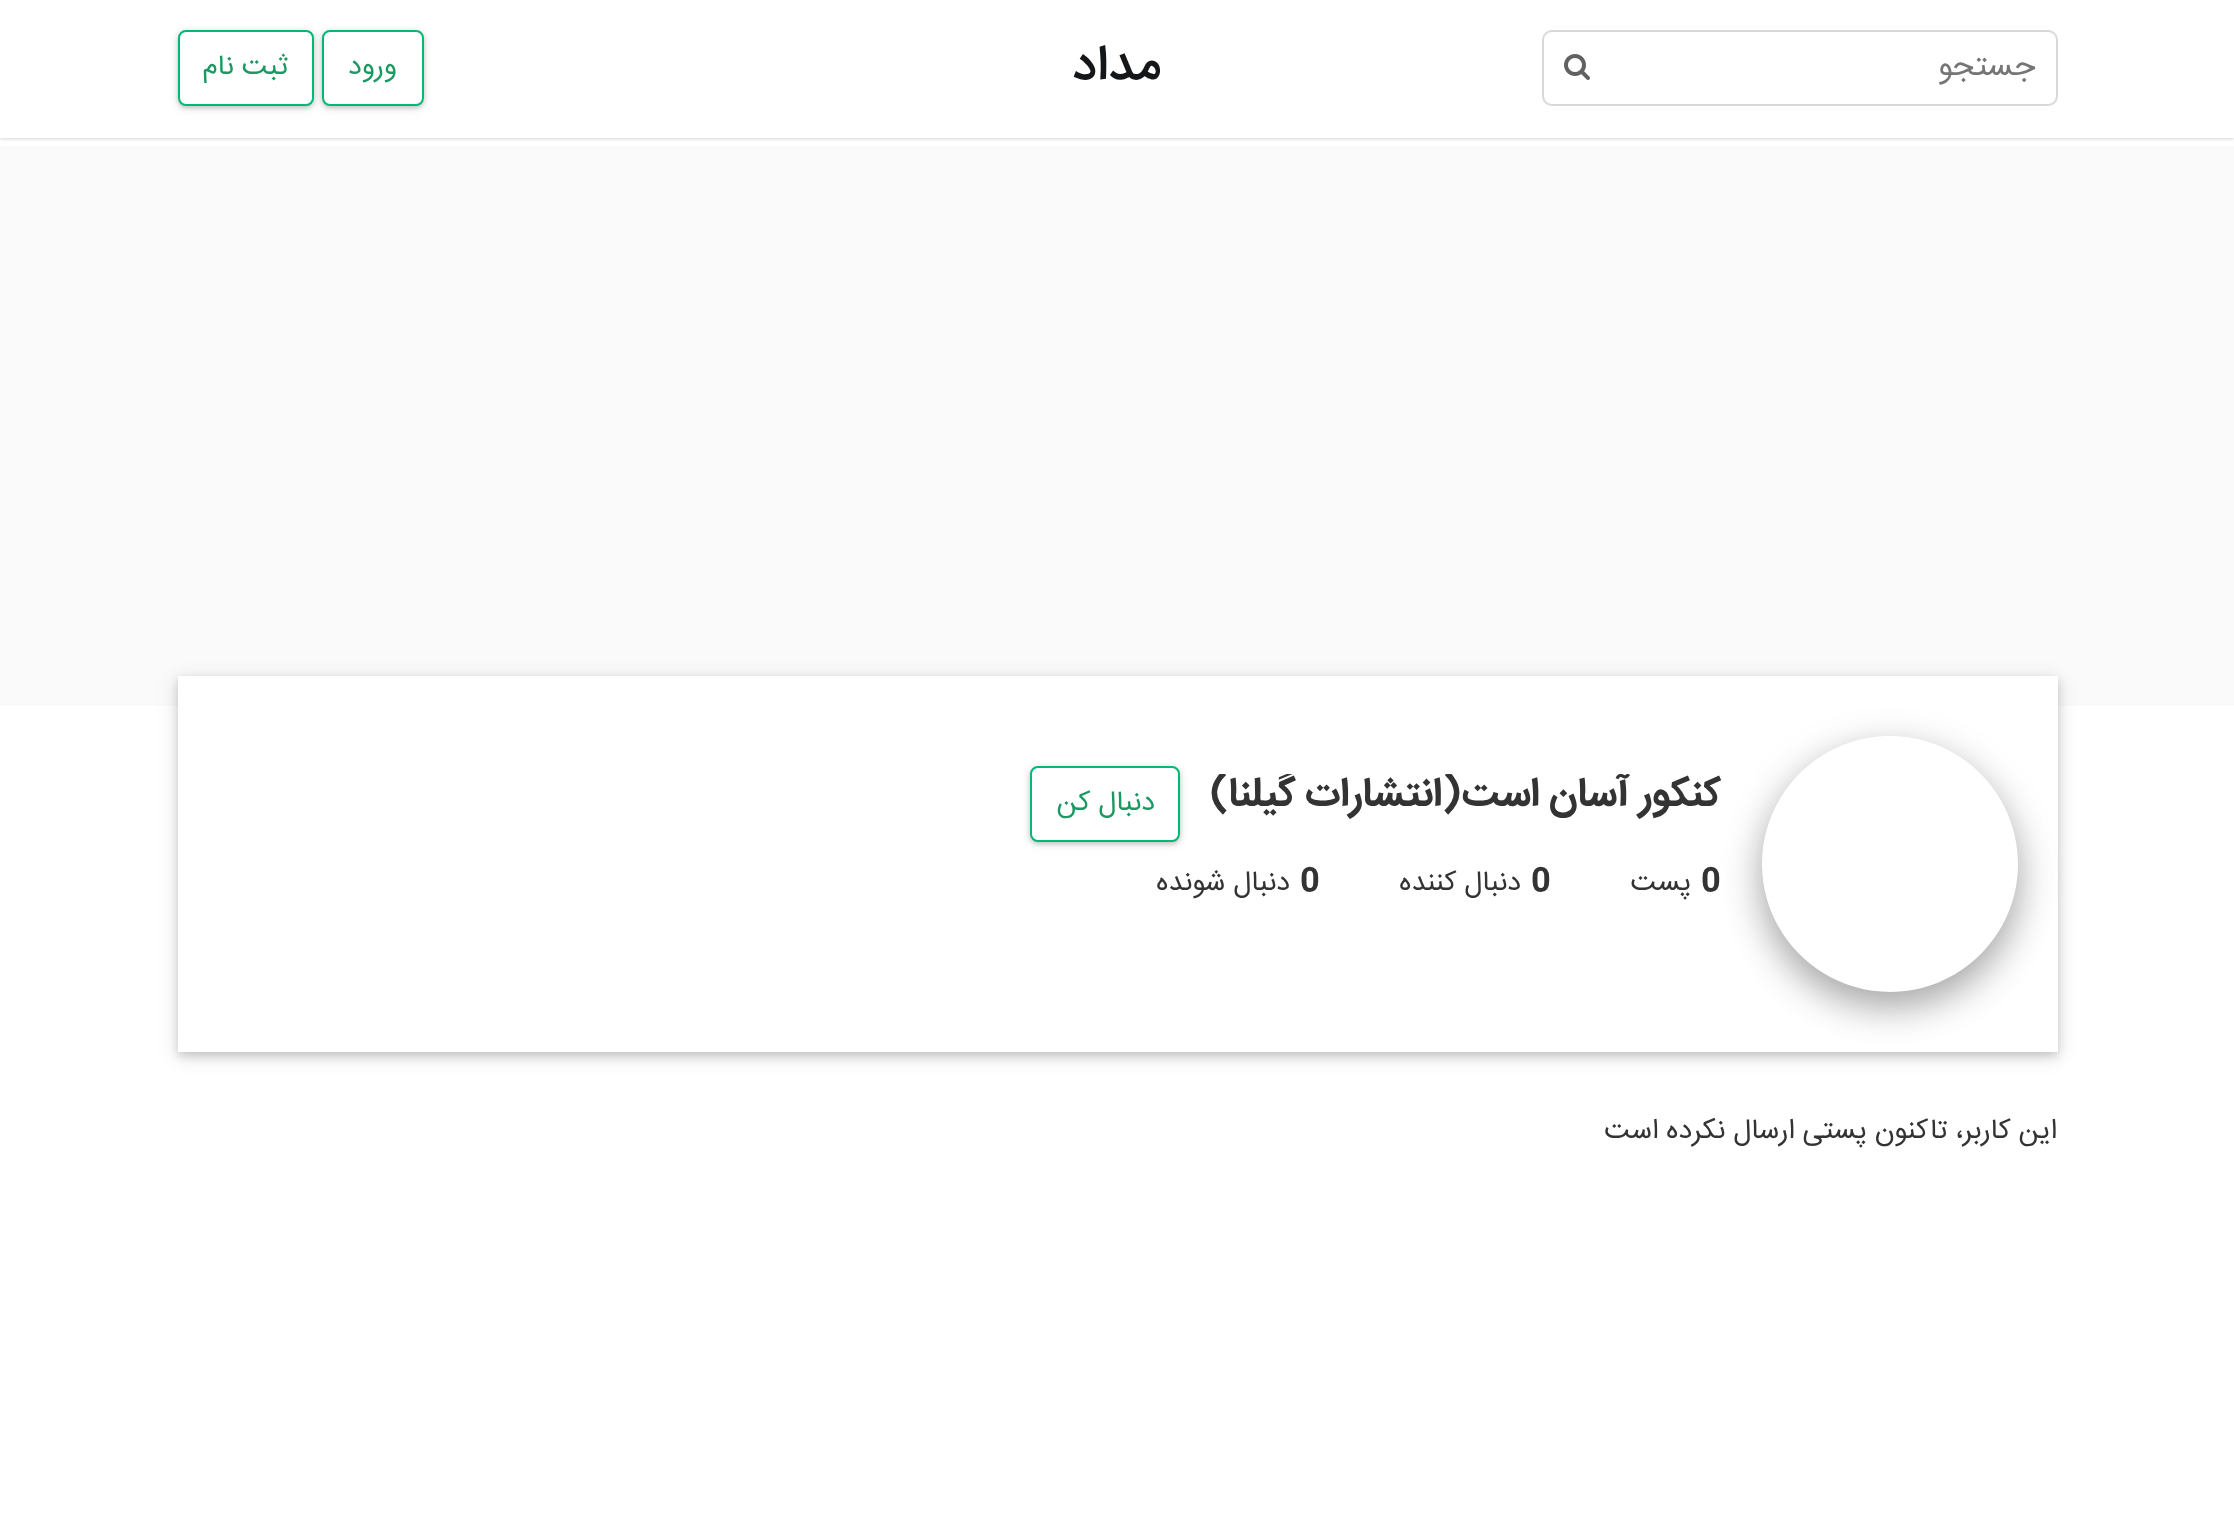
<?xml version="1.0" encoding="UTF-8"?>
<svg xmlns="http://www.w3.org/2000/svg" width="2234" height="1539">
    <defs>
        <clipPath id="clip1"><rect x="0" y="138" width="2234" height="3"/></clipPath>
        <filter id="blur1" x="-50%" y="-200%" width="200%" height="500%"><feGaussianBlur stdDeviation="1"/></filter>
        <filter id="blur2" x="-50%" y="-200%" width="200%" height="500%"><feGaussianBlur stdDeviation="5"/></filter>
        <filter id="blur3" x="-50%" y="-200%" width="200%" height="500%"><feGaussianBlur stdDeviation="2"/></filter>
        <filter id="blur4" x="-50%" y="-200%" width="200%" height="500%"><feGaussianBlur stdDeviation="10"/></filter>
        <clipPath id="clip2"><path d="M 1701 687 H 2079 V 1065 H 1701 Z M 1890 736 C 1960.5 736 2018 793.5 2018 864 C 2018 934.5 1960.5 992 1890 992 C 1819.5 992 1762 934.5 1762 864 C 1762 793.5 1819.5 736 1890 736 Z" clip-rule="evenodd"/></clipPath>
        <filter id="blur5" x="-50%" y="-200%" width="200%" height="500%"><feGaussianBlur stdDeviation="20"/></filter>
        <clipPath id="clip3"><path d="M 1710 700 H 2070 V 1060 H 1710 Z M 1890 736 C 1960.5 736 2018 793.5 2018 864 C 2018 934.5 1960.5 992 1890 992 C 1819.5 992 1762 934.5 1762 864 C 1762 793.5 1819.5 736 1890 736 Z" clip-rule="evenodd"/></clipPath>
        <filter id="blur6" x="-50%" y="-200%" width="200%" height="500%"><feGaussianBlur stdDeviation="17"/></filter>
        <clipPath id="clip4"><rect x="1210" y="774" width="512" height="48"/></clipPath>
    </defs>
    <rect width="100%" height="100%" fill="#FFFFFF"/>
    <g clip-path="url(#clip1)">
        <rect x="0" y="2" width="2234" height="138" fill="#000000" fill-opacity="0.1" filter="url(#blur1)"/>
    </g>
    <rect x="1543" y="31" width="514" height="74" rx="9" fill="none" stroke="#D9D9D9" stroke-width="2"/>
    <text x="2035" y="75" font-family="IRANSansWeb" font-size="32" direction="rtl" fill="#757575">جستجو</text>
    <image x="1564" y="54" width="26" height="26" href="img_01.png"/>
    <text x="1161" y="79" font-family="IRANSansWeb" font-size="50" font-weight="500" direction="rtl" fill="#14171A">مداد</text>
    <rect x="322" y="32" width="102" height="76" rx="8" fill="#000000" fill-opacity="0.12" filter="url(#blur2)"/>
    <rect x="322" y="32" width="102" height="76" rx="8" fill="#000000" fill-opacity="0.16" filter="url(#blur3)"/>
    <rect x="323" y="31" width="100" height="74" rx="7" fill="#FFFFFF" stroke="#02B875" stroke-width="2"/>
    <text x="397" y="74" font-family="IRANSansWeb" font-size="28" direction="rtl" fill="#1C9963">ورود</text>
    <rect x="178" y="32" width="136" height="76" rx="8" fill="#000000" fill-opacity="0.12" filter="url(#blur2)"/>
    <rect x="178" y="32" width="136" height="76" rx="8" fill="#000000" fill-opacity="0.16" filter="url(#blur3)"/>
    <rect x="179" y="31" width="134" height="74" rx="7" fill="#FFFFFF" stroke="#02B875" stroke-width="2"/>
    <text x="288" y="74" font-family="IRANSansWeb" font-size="28" direction="rtl" fill="#1C9963">ثبت نام</text>
    <rect x="0" y="146" width="2234" height="560" fill="#FAFAFA"/>
    <rect x="178" y="680" width="1880" height="376" fill="#000000" fill-opacity="0.12" filter="url(#blur4)"/>
    <rect x="178" y="680" width="1880" height="376" fill="#000000" fill-opacity="0.16" filter="url(#blur2)"/>
    <rect x="178" y="676" width="1880" height="376" fill="#FFFFFF"/>
    <g clip-path="url(#clip2)">
        <rect x="1762" y="748" width="256" height="256" rx="128" fill="#000000" fill-opacity="0.19" filter="url(#blur5)"/>
    </g>
    <g clip-path="url(#clip3)">
        <rect x="1762" y="752" width="256" height="256" rx="128" fill="#000000" fill-opacity="0.2" filter="url(#blur6)"/>
    </g>
    <g clip-path="url(#clip4)">
        <text x="1721" y="805" font-family="IRANSansWeb" font-size="40" font-weight="700" direction="rtl" fill="#333333">کنکور آسان است(انتشارات گیلنا)</text>
    </g>
    <rect x="1030" y="768" width="150" height="76" rx="8" fill="#000000" fill-opacity="0.12" filter="url(#blur2)"/>
    <rect x="1030" y="768" width="150" height="76" rx="8" fill="#000000" fill-opacity="0.16" filter="url(#blur3)"/>
    <rect x="1031" y="767" width="148" height="74" rx="7" fill="#FFFFFF" stroke="#02B875" stroke-width="2"/>
    <text x="1155" y="810" font-family="IRANSansWeb" font-size="28" direction="rtl" fill="#1C9963">دنبال کن</text>
    <text x="1701" y="890" font-family="IRANSansWeb" font-size="32" font-weight="700" fill="#333333">0</text>
    <text x="1691" y="890" font-family="IRANSansWeb" font-size="28" direction="rtl" fill="#333333">پست</text>
    <text x="1531" y="890" font-family="IRANSansWeb" font-size="32" font-weight="700" fill="#333333">0</text>
    <text x="1521" y="890" font-family="IRANSansWeb" font-size="28" direction="rtl" fill="#333333">دنبال کننده</text>
    <text x="1300" y="890" font-family="IRANSansWeb" font-size="32" font-weight="700" fill="#333333">0</text>
    <text x="1290" y="890" font-family="IRANSansWeb" font-size="28" direction="rtl" fill="#333333">دنبال شونده</text>
    <text x="2057" y="1138" font-family="IRANSansWeb" font-size="28" direction="rtl" fill="#333333">این کاربر، تاکنون پستی ارسال نکرده است</text>
</svg>
